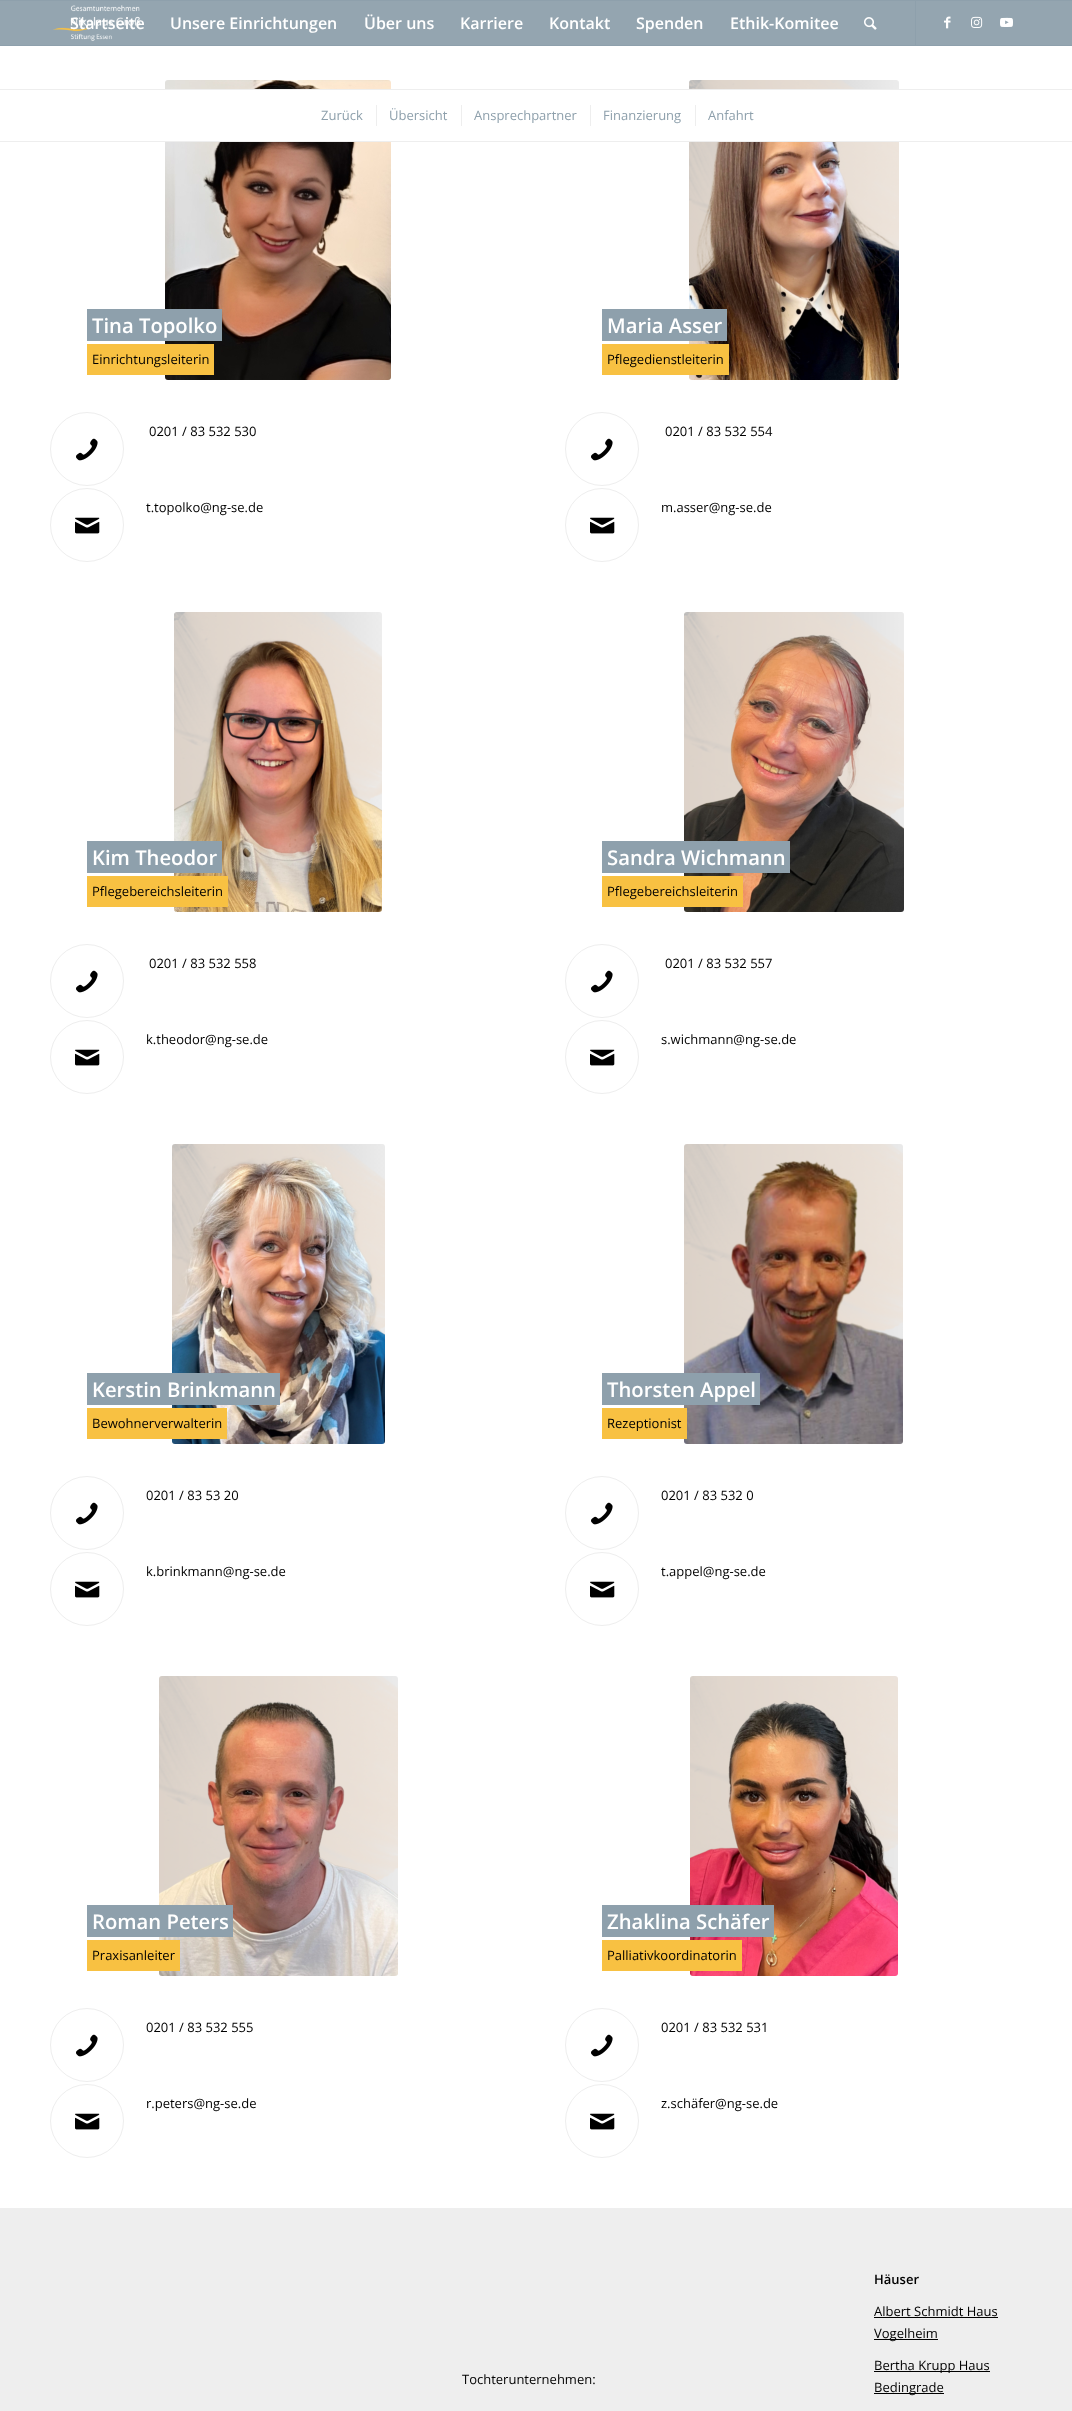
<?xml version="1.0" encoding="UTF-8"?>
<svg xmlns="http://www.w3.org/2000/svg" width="1072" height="2411">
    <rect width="100%" height="100%" fill="#EEEEEE"/>
    <rect x="0" y="0" width="1072" height="1" fill="#8EA0AC"/>
    <rect x="0" y="45" width="1072" height="1" fill="#8EA0AC"/>
    <rect x="0" y="1" width="1072" height="44" fill="#94A5B0"/>
    <image x="53" y="5" width="88" height="36" href="img_01.png"/>
    <rect x="915" y="1" width="1" height="44" fill="#8EA0AC"/>
    <text x="70" y="29" font-family="Open Sans" font-size="16" font-weight="600" fill="#FFFFFF">Startseite</text>
    <text x="170" y="29" font-family="Open Sans" font-size="16" font-weight="600" fill="#FFFFFF">Unsere Einrichtungen</text>
    <text x="364" y="29" font-family="Open Sans" font-size="16" font-weight="600" fill="#FFFFFF">Über uns</text>
    <text x="460" y="29" font-family="Open Sans" font-size="16" font-weight="600" fill="#FFFFFF">Karriere</text>
    <text x="549" y="29" font-family="Open Sans" font-size="16" font-weight="600" fill="#FFFFFF">Kontakt</text>
    <text x="636" y="29" font-family="Open Sans" font-size="16" font-weight="600" fill="#FFFFFF">Spenden</text>
    <text x="730" y="29" font-family="Open Sans" font-size="16" font-weight="600" fill="#FFFFFF">Ethik-Komitee</text>
    <image x="864" y="17" width="13" height="13" href="img_02.png"/>
    <image x="944" y="16" width="7" height="13" href="img_03.png"/>
    <image x="971" y="16" width="12" height="12" href="img_04.png"/>
    <image x="1000" y="17" width="13" height="10" href="img_05.png"/>
    <rect x="0" y="46" width="1072" height="2162" fill="#FFFFFF"/>
    <image x="165" y="80" width="226" height="300" href="img_06.png"/>
    <image x="689" y="80" width="210" height="300" href="img_09.png"/>
    <rect x="165" y="90" width="734" height="51" fill="#FFFFFF"/>
    <rect x="0" y="89" width="1072" height="1" fill="#EEEEEE"/>
    <rect x="0" y="141" width="1072" height="1" fill="#EEEEEE"/>
    <text x="321" y="120" font-family="Open Sans" font-size="13" fill="#8EA0AC">Zurück</text>
    <rect x="376" y="105" width="1" height="21" fill="#EEEEEE"/>
    <text x="389" y="120" font-family="Open Sans" font-size="13" fill="#8EA0AC">Übersicht</text>
    <rect x="461" y="105" width="1" height="21" fill="#EEEEEE"/>
    <text x="474" y="120" font-family="Open Sans" font-size="13" fill="#8EA0AC">Ansprechpartner</text>
    <rect x="590" y="105" width="1" height="21" fill="#EEEEEE"/>
    <text x="603" y="120" font-family="Open Sans" font-size="13" fill="#8EA0AC">Finanzierung</text>
    <rect x="695" y="105" width="1" height="21" fill="#EEEEEE"/>
    <text x="708" y="120" font-family="Open Sans" font-size="13" fill="#8EA0AC">Anfahrt</text>
    <rect x="87" y="309" width="135" height="32" fill="#8EA0AC"/>
    <text x="92" y="333" font-family="Open Sans" font-size="20.25" font-weight="600" fill="#FFFFFF">Tina Topolko</text>
    <rect x="87" y="344" width="127" height="31" fill="#F8C142"/>
    <text x="92" y="364" font-family="Open Sans" font-size="13" fill="#000000">Einrichtungsleiterin</text>
    <circle cx="87" cy="449" r="36.5" fill="none" stroke="#EEEEEE"/>
    <image x="76" y="438" width="22" height="23" href="img_07.png"/>
    <text x="149" y="436" font-family="Open Sans" font-size="13" fill="#000000">0201 / 83 532 530</text>
    <circle cx="87" cy="525" r="36.5" fill="none" stroke="#EEEEEE"/>
    <image x="75" y="517" width="25" height="17" href="img_08.png"/>
    <text x="146" y="512" font-family="Open Sans" font-size="13" fill="#000000">t.topolko@ng-se.de</text>
    <rect x="602" y="309" width="125" height="32" fill="#8EA0AC"/>
    <text x="607" y="333" font-family="Open Sans" font-size="20.25" font-weight="600" fill="#FFFFFF">Maria Asser</text>
    <rect x="602" y="344" width="127" height="31" fill="#F8C142"/>
    <text x="607" y="364" font-family="Open Sans" font-size="13" fill="#000000">Pflegedienstleiterin</text>
    <circle cx="602" cy="449" r="36.5" fill="none" stroke="#EEEEEE"/>
    <image x="591" y="438" width="22" height="23" href="img_07.png"/>
    <text x="665" y="436" font-family="Open Sans" font-size="13" fill="#000000">0201 / 83 532 554</text>
    <circle cx="602" cy="525" r="36.5" fill="none" stroke="#EEEEEE"/>
    <image x="590" y="517" width="25" height="17" href="img_08.png"/>
    <text x="661" y="512" font-family="Open Sans" font-size="13" fill="#000000">m.asser@ng-se.de</text>
    <image x="174" y="612" width="208" height="300" href="img_10.png"/>
    <rect x="87" y="841" width="135" height="32" fill="#8EA0AC"/>
    <text x="92" y="865" font-family="Open Sans" font-size="20.25" font-weight="600" fill="#FFFFFF">Kim Theodor</text>
    <rect x="87" y="876" width="141" height="31" fill="#F8C142"/>
    <text x="92" y="896" font-family="Open Sans" font-size="13" fill="#000000">Pflegebereichsleiterin</text>
    <circle cx="87" cy="981" r="36.5" fill="none" stroke="#EEEEEE"/>
    <image x="76" y="970" width="22" height="23" href="img_07.png"/>
    <text x="149" y="968" font-family="Open Sans" font-size="13" fill="#000000">0201 / 83 532 558</text>
    <circle cx="87" cy="1057" r="36.5" fill="none" stroke="#EEEEEE"/>
    <image x="75" y="1049" width="25" height="17" href="img_08.png"/>
    <text x="146" y="1044" font-family="Open Sans" font-size="13" fill="#000000">k.theodor@ng-se.de</text>
    <image x="684" y="612" width="220" height="300" href="img_11.png"/>
    <rect x="602" y="841" width="188" height="32" fill="#8EA0AC"/>
    <text x="607" y="865" font-family="Open Sans" font-size="20.25" font-weight="600" fill="#FFFFFF">Sandra Wichmann</text>
    <rect x="602" y="876" width="141" height="31" fill="#F8C142"/>
    <text x="607" y="896" font-family="Open Sans" font-size="13" fill="#000000">Pflegebereichsleiterin</text>
    <circle cx="602" cy="981" r="36.5" fill="none" stroke="#EEEEEE"/>
    <image x="591" y="970" width="22" height="23" href="img_07.png"/>
    <text x="665" y="968" font-family="Open Sans" font-size="13" fill="#000000">0201 / 83 532 557</text>
    <circle cx="602" cy="1057" r="36.5" fill="none" stroke="#EEEEEE"/>
    <image x="590" y="1049" width="25" height="17" href="img_08.png"/>
    <text x="661" y="1044" font-family="Open Sans" font-size="13" fill="#000000">s.wichmann@ng-se.de</text>
    <image x="172" y="1144" width="213" height="300" href="img_12.png"/>
    <rect x="87" y="1373" width="193" height="32" fill="#8EA0AC"/>
    <text x="92" y="1397" font-family="Open Sans" font-size="20.25" font-weight="600" fill="#FFFFFF">Kerstin Brinkmann</text>
    <rect x="87" y="1408" width="140" height="31" fill="#F8C142"/>
    <text x="92" y="1428" font-family="Open Sans" font-size="13" fill="#000000">Bewohnerverwalterin</text>
    <circle cx="87" cy="1513" r="36.5" fill="none" stroke="#EEEEEE"/>
    <image x="76" y="1502" width="22" height="23" href="img_07.png"/>
    <text x="146" y="1500" font-family="Open Sans" font-size="13" fill="#000000">0201 / 83 53 20</text>
    <circle cx="87" cy="1589" r="36.5" fill="none" stroke="#EEEEEE"/>
    <image x="75" y="1581" width="25" height="17" href="img_08.png"/>
    <text x="146" y="1576" font-family="Open Sans" font-size="13" fill="#000000">k.brinkmann@ng-se.de</text>
    <image x="684" y="1144" width="219" height="300" href="img_13.png"/>
    <rect x="602" y="1373" width="158" height="32" fill="#8EA0AC"/>
    <text x="607" y="1397" font-family="Open Sans" font-size="20.25" font-weight="600" fill="#FFFFFF">Thorsten Appel</text>
    <rect x="602" y="1408" width="85" height="31" fill="#F8C142"/>
    <text x="607" y="1428" font-family="Open Sans" font-size="13" fill="#000000">Rezeptionist</text>
    <circle cx="602" cy="1513" r="36.5" fill="none" stroke="#EEEEEE"/>
    <image x="591" y="1502" width="22" height="23" href="img_07.png"/>
    <text x="661" y="1500" font-family="Open Sans" font-size="13" fill="#000000">0201 / 83 532 0</text>
    <circle cx="602" cy="1589" r="36.5" fill="none" stroke="#EEEEEE"/>
    <image x="590" y="1581" width="25" height="17" href="img_08.png"/>
    <text x="661" y="1576" font-family="Open Sans" font-size="13" fill="#000000">t.appel@ng-se.de</text>
    <image x="159" y="1676" width="239" height="300" href="img_14.png"/>
    <rect x="87" y="1905" width="146" height="32" fill="#8EA0AC"/>
    <text x="92" y="1929" font-family="Open Sans" font-size="20.25" font-weight="600" fill="#FFFFFF">Roman Peters</text>
    <rect x="87" y="1940" width="93" height="31" fill="#F8C142"/>
    <text x="92" y="1960" font-family="Open Sans" font-size="13" fill="#000000">Praxisanleiter</text>
    <circle cx="87" cy="2045" r="36.5" fill="none" stroke="#EEEEEE"/>
    <image x="76" y="2034" width="22" height="23" href="img_07.png"/>
    <text x="146" y="2032" font-family="Open Sans" font-size="13" fill="#000000">0201 / 83 532 555</text>
    <circle cx="87" cy="2121" r="36.5" fill="none" stroke="#EEEEEE"/>
    <image x="75" y="2113" width="25" height="17" href="img_08.png"/>
    <text x="146" y="2108" font-family="Open Sans" font-size="13" fill="#000000">r.peters@ng-se.de</text>
    <image x="690" y="1676" width="208" height="300" href="img_15.png"/>
    <rect x="602" y="1905" width="172" height="32" fill="#8EA0AC"/>
    <text x="607" y="1929" font-family="Open Sans" font-size="20.25" font-weight="600" fill="#FFFFFF">Zhaklina Schäfer</text>
    <rect x="602" y="1940" width="140" height="31" fill="#F8C142"/>
    <text x="607" y="1960" font-family="Open Sans" font-size="13" fill="#000000">Palliativkoordinatorin</text>
    <circle cx="602" cy="2045" r="36.5" fill="none" stroke="#EEEEEE"/>
    <image x="591" y="2034" width="22" height="23" href="img_07.png"/>
    <text x="661" y="2032" font-family="Open Sans" font-size="13" fill="#000000">0201 / 83 532 531</text>
    <circle cx="602" cy="2121" r="36.5" fill="none" stroke="#EEEEEE"/>
    <image x="590" y="2113" width="25" height="17" href="img_08.png"/>
    <text x="661" y="2108" font-family="Open Sans" font-size="13" fill="#000000">z.schäfer@ng-se.de</text>
    <text x="462" y="2384" font-family="Open Sans" font-size="13" fill="#000000">Tochterunternehmen:</text>
    <text x="874" y="2284" font-family="Open Sans" font-size="13" font-weight="600" fill="#000000">Häuser</text>
    <text x="874" y="2316" font-family="Open Sans" font-size="13" fill="#000000">Albert Schmidt Haus</text>
    <rect x="874" y="2317" width="124" height="1" fill="#000000"/>
    <rect x="874" y="2339" width="64" height="1" fill="#000000"/>
    <text x="874" y="2338" font-family="Open Sans" font-size="13" fill="#000000">Vogelheim</text>
    <rect x="874" y="2371" width="116" height="1" fill="#000000"/>
    <text x="874" y="2370" font-family="Open Sans" font-size="13" fill="#000000">Bertha Krupp Haus</text>
    <rect x="874" y="2393" width="70" height="1" fill="#000000"/>
    <text x="874" y="2392" font-family="Open Sans" font-size="13" fill="#000000">Bedingrade</text>
</svg>
